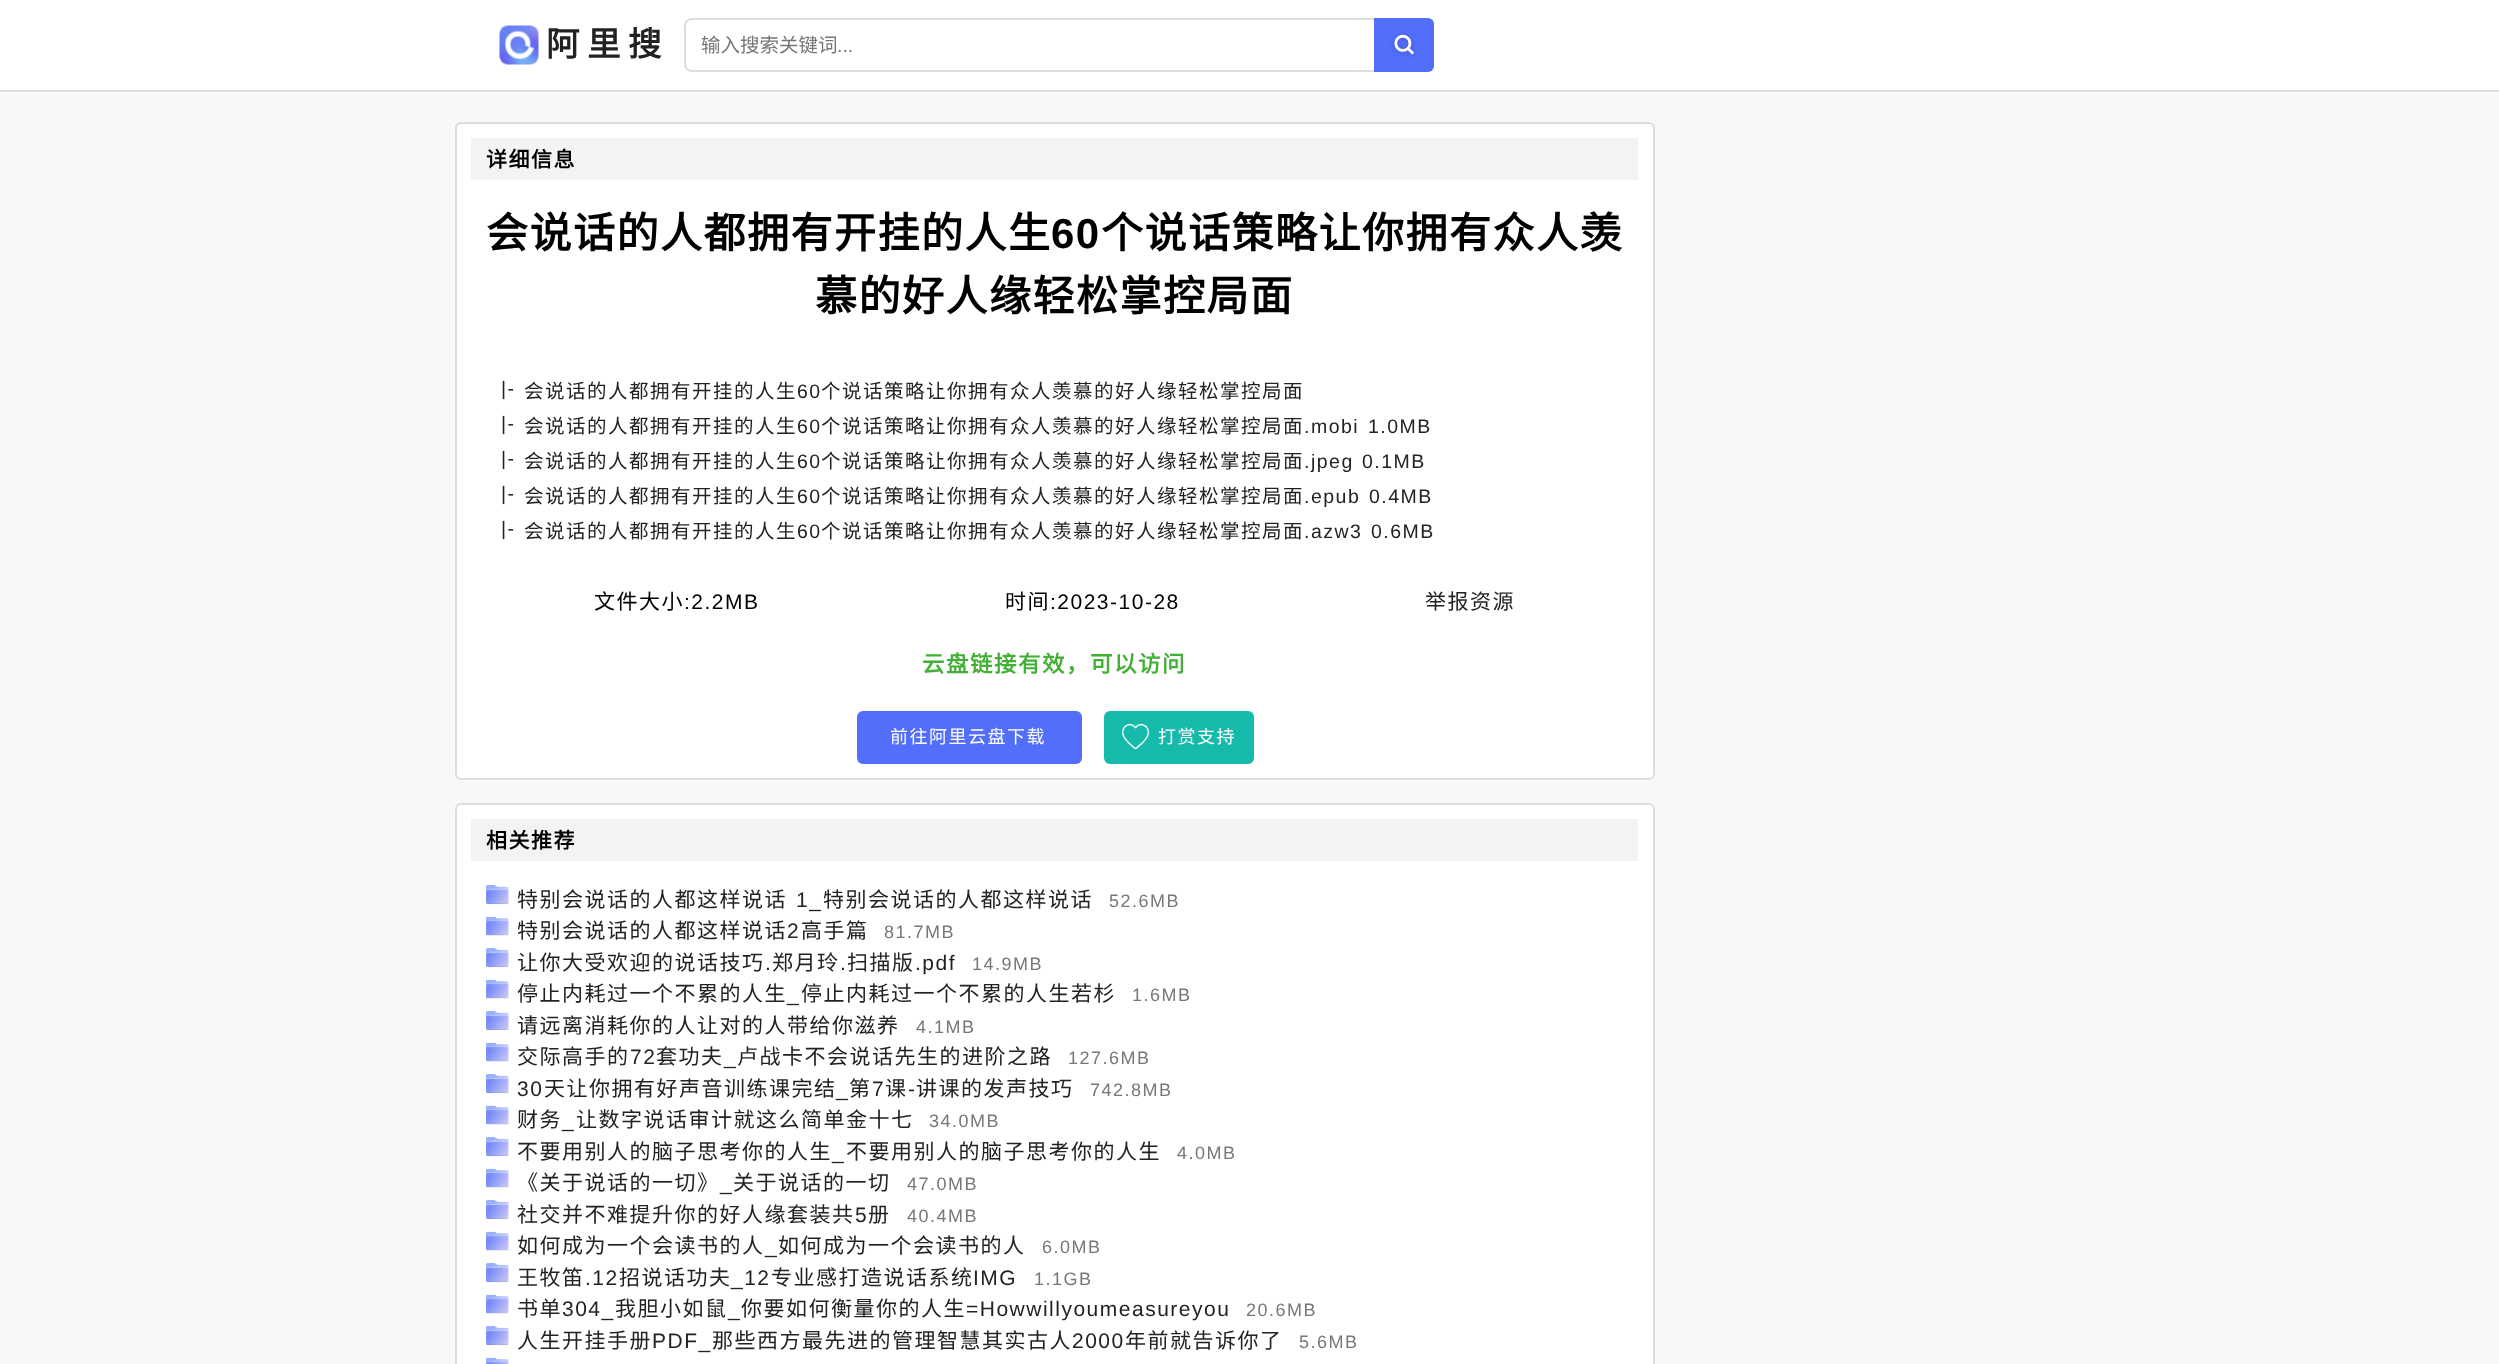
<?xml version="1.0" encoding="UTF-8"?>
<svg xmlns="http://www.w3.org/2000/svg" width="2499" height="1364">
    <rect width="100%" height="100%" fill="#FFFFFF"/>
    <rect x="0" y="90" width="2499" height="2" fill="#DDDDDD"/>
    <image x="499" y="25" width="40" height="40" href="img_01.png"/>
    <text x="546" y="56" font-family="Noto Sans CJK SC" font-size="33.5" font-weight="700" letter-spacing="7.5" fill="#222222">阿里搜</text>
    <rect x="685" y="19" width="748" height="52" rx="7" fill="none" stroke="#DDDDDD" stroke-width="2"/>
    <text x="701" y="52" font-family="Noto Sans CJK SC" font-size="19.5" fill="#777777">输入搜索关键词</text>
    <text x="837" y="52" font-family="Liberation Sans" font-size="19.5" fill="#777777">...</text>
    <image x="1374" y="18" width="60" height="54" href="img_02.png"/>
    <rect x="0" y="92" width="2499" height="1272" fill="#F8F8F8"/>
    <rect x="456" y="123" width="1198" height="656" rx="5" fill="#FFFFFF" stroke="#DDDDDD" stroke-width="2"/>
    <rect x="471" y="138" width="1167" height="42" fill="#F3F3F3"/>
    <text x="486" y="167" font-family="Noto Sans CJK SC" font-size="21" font-weight="700" letter-spacing="1.5" fill="#000000">详细信息</text>
    <text x="486" y="248" font-family="Noto Sans CJK SC" font-size="42" font-weight="700" letter-spacing="1.5" fill="#000000">会说话的人都拥有开挂的人生</text>
    <text x="1051" y="248" font-family="Liberation Sans" font-size="42" font-weight="700" letter-spacing="1.5" fill="#000000">60</text>
    <text x="1101" y="248" font-family="Noto Sans CJK SC" font-size="42" font-weight="700" letter-spacing="1.5" fill="#000000">个说话策略让你拥有众人羡</text>
    <text x="815" y="311" font-family="Noto Sans CJK SC" font-size="42" font-weight="700" letter-spacing="1.5" fill="#000000">慕的好人缘轻松掌控局面</text>
    <text x="501" y="395" font-family="Liberation Sans" font-size="19.5" letter-spacing="1.5" fill="#222222">|-</text>
    <text x="524" y="398" font-family="Noto Sans CJK SC" font-size="19.5" letter-spacing="1.5" fill="#222222">会说话的人都拥有开挂的人生</text>
    <text x="797" y="398" font-family="Liberation Sans" font-size="19.5" letter-spacing="1.5" fill="#222222">60</text>
    <text x="821" y="398" font-family="Noto Sans CJK SC" font-size="19.5" letter-spacing="1.5" fill="#222222">个说话策略让你拥有众人羡慕的好人缘轻松掌控局面</text>
    <text x="501" y="430" font-family="Liberation Sans" font-size="19.5" letter-spacing="1.5" fill="#222222">|-</text>
    <text x="524" y="433" font-family="Noto Sans CJK SC" font-size="19.5" letter-spacing="1.5" fill="#222222">会说话的人都拥有开挂的人生</text>
    <text x="797" y="433" font-family="Liberation Sans" font-size="19.5" letter-spacing="1.5" fill="#222222">60</text>
    <text x="821" y="433" font-family="Noto Sans CJK SC" font-size="19.5" letter-spacing="1.5" fill="#222222">个说话策略让你拥有众人羡慕的好人缘轻松掌控局面</text>
    <text x="1304" y="433" font-family="Liberation Sans" font-size="19.5" letter-spacing="1.5" fill="#222222">.mobi</text>
    <text x="1368" y="433" font-family="Liberation Sans" font-size="19.5" letter-spacing="1.5" fill="#222222">1.0MB</text>
    <text x="501" y="465" font-family="Liberation Sans" font-size="19.5" letter-spacing="1.5" fill="#222222">|-</text>
    <text x="524" y="468" font-family="Noto Sans CJK SC" font-size="19.5" letter-spacing="1.5" fill="#222222">会说话的人都拥有开挂的人生</text>
    <text x="797" y="468" font-family="Liberation Sans" font-size="19.5" letter-spacing="1.5" fill="#222222">60</text>
    <text x="821" y="468" font-family="Noto Sans CJK SC" font-size="19.5" letter-spacing="1.5" fill="#222222">个说话策略让你拥有众人羡慕的好人缘轻松掌控局面</text>
    <text x="1304" y="468" font-family="Liberation Sans" font-size="19.5" letter-spacing="1.5" fill="#222222">.jpeg</text>
    <text x="1362" y="468" font-family="Liberation Sans" font-size="19.5" letter-spacing="1.5" fill="#222222">0.1MB</text>
    <text x="501" y="500" font-family="Liberation Sans" font-size="19.5" letter-spacing="1.5" fill="#222222">|-</text>
    <text x="524" y="503" font-family="Noto Sans CJK SC" font-size="19.5" letter-spacing="1.5" fill="#222222">会说话的人都拥有开挂的人生</text>
    <text x="797" y="503" font-family="Liberation Sans" font-size="19.5" letter-spacing="1.5" fill="#222222">60</text>
    <text x="821" y="503" font-family="Noto Sans CJK SC" font-size="19.5" letter-spacing="1.5" fill="#222222">个说话策略让你拥有众人羡慕的好人缘轻松掌控局面</text>
    <text x="1304" y="503" font-family="Liberation Sans" font-size="19.5" letter-spacing="1.5" fill="#222222">.epub</text>
    <text x="1369" y="503" font-family="Liberation Sans" font-size="19.5" letter-spacing="1.5" fill="#222222">0.4MB</text>
    <text x="501" y="535" font-family="Liberation Sans" font-size="19.5" letter-spacing="1.5" fill="#222222">|-</text>
    <text x="524" y="538" font-family="Noto Sans CJK SC" font-size="19.5" letter-spacing="1.5" fill="#222222">会说话的人都拥有开挂的人生</text>
    <text x="797" y="538" font-family="Liberation Sans" font-size="19.5" letter-spacing="1.5" fill="#222222">60</text>
    <text x="821" y="538" font-family="Noto Sans CJK SC" font-size="19.5" letter-spacing="1.5" fill="#222222">个说话策略让你拥有众人羡慕的好人缘轻松掌控局面</text>
    <text x="1304" y="538" font-family="Liberation Sans" font-size="19.5" letter-spacing="1.5" fill="#222222">.azw3</text>
    <text x="1371" y="538" font-family="Liberation Sans" font-size="19.5" letter-spacing="1.5" fill="#222222">0.6MB</text>
    <text x="594" y="609" font-family="Noto Sans CJK SC" font-size="21" letter-spacing="1.5" fill="#000000">文件大小</text>
    <text x="684" y="609" font-family="Liberation Sans" font-size="21" letter-spacing="1.5" fill="#000000">:2.2MB</text>
    <text x="1005" y="609" font-family="Noto Sans CJK SC" font-size="21" letter-spacing="1.5" fill="#000000">时间</text>
    <text x="1050" y="609" font-family="Liberation Sans" font-size="21" letter-spacing="1.5" fill="#000000">:2023-10-28</text>
    <text x="1425" y="609" font-family="Noto Sans CJK SC" font-size="21" letter-spacing="1.5" fill="#222222">举报资源</text>
    <text x="922" y="672" font-family="Noto Sans CJK SC" font-size="22.5" font-weight="700" letter-spacing="1.5" fill="#41B035">云盘链接有效，可以访问</text>
    <rect x="857" y="711" width="225" height="53" rx="6" fill="#526EFA"/>
    <text x="890" y="743" font-family="Noto Sans CJK SC" font-size="18" letter-spacing="1.5" fill="#FFFFFF">前往阿里云盘下载</text>
    <rect x="1104" y="711" width="150" height="53" rx="6" fill="#16BAAA"/>
    <image x="1121" y="723" width="29" height="27" href="img_03.png"/>
    <text x="1158" y="743" font-family="Noto Sans CJK SC" font-size="18" letter-spacing="1.5" fill="#FFFFFF">打赏支持</text>
    <rect x="456" y="804" width="1198" height="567" rx="5" fill="#FFFFFF" stroke="#DDDDDD" stroke-width="2"/>
    <rect x="471" y="819" width="1167" height="42" fill="#F3F3F3"/>
    <text x="486" y="848" font-family="Noto Sans CJK SC" font-size="21" font-weight="700" letter-spacing="1.5" fill="#000000">相关推荐</text>
    <image x="486" y="885" width="23" height="20" href="img_04.png"/>
    <text x="517" y="907" font-family="Noto Sans CJK SC" font-size="21" letter-spacing="1.5" fill="#222222">特别会说话的人都这样说话</text>
    <text x="796" y="907" font-family="Liberation Sans" font-size="21" letter-spacing="1.5" fill="#222222">1_</text>
    <text x="823" y="907" font-family="Noto Sans CJK SC" font-size="21" letter-spacing="1.5" fill="#222222">特别会说话的人都这样说话</text>
    <text x="1109" y="907" font-family="Liberation Sans" font-size="18" letter-spacing="1.5" fill="#777777">52.6MB</text>
    <image x="486" y="916" width="23" height="20" href="img_05.png"/>
    <text x="517" y="938" font-family="Noto Sans CJK SC" font-size="21" letter-spacing="1.5" fill="#222222">特别会说话的人都这样说话</text>
    <text x="787" y="938" font-family="Liberation Sans" font-size="21" letter-spacing="1.5" fill="#222222">2</text>
    <text x="801" y="938" font-family="Noto Sans CJK SC" font-size="21" letter-spacing="1.5" fill="#222222">高手篇</text>
    <text x="884" y="938" font-family="Liberation Sans" font-size="18" letter-spacing="1.5" fill="#777777">81.7MB</text>
    <image x="486" y="948" width="23" height="20" href="img_04.png"/>
    <text x="517" y="970" font-family="Noto Sans CJK SC" font-size="21" letter-spacing="1.5" fill="#222222">让你大受欢迎的说话技巧</text>
    <text x="765" y="970" font-family="Liberation Sans" font-size="21" letter-spacing="1.5" fill="#222222">.</text>
    <text x="772" y="970" font-family="Noto Sans CJK SC" font-size="21" letter-spacing="1.5" fill="#222222">郑月玲</text>
    <text x="840" y="970" font-family="Liberation Sans" font-size="21" letter-spacing="1.5" fill="#222222">.</text>
    <text x="847" y="970" font-family="Noto Sans CJK SC" font-size="21" letter-spacing="1.5" fill="#222222">扫描版</text>
    <text x="915" y="970" font-family="Liberation Sans" font-size="21" letter-spacing="1.5" fill="#222222">.pdf</text>
    <text x="972" y="970" font-family="Liberation Sans" font-size="18" letter-spacing="1.5" fill="#777777">14.9MB</text>
    <image x="486" y="979" width="23" height="20" href="img_05.png"/>
    <text x="517" y="1001" font-family="Noto Sans CJK SC" font-size="21" letter-spacing="1.5" fill="#222222">停止内耗过一个不累的人生</text>
    <text x="801" y="1001" font-family="Noto Sans CJK SC" font-size="21" letter-spacing="1.5" fill="#222222">停止内耗过一个不累的人生若杉</text>
    <text x="1132" y="1001" font-family="Liberation Sans" font-size="18" letter-spacing="1.5" fill="#777777">1.6MB</text>
    <text x="787" y="1001" font-family="Liberation Sans" font-size="21" letter-spacing="1.5" fill="#222222">_</text>
    <image x="486" y="1011" width="23" height="20" href="img_04.png"/>
    <text x="517" y="1033" font-family="Noto Sans CJK SC" font-size="21" letter-spacing="1.5" fill="#222222">请远离消耗你的人让对的人带给你滋养</text>
    <text x="916" y="1033" font-family="Liberation Sans" font-size="18" letter-spacing="1.5" fill="#777777">4.1MB</text>
    <image x="486" y="1042" width="23" height="20" href="img_06.png"/>
    <text x="517" y="1064" font-family="Noto Sans CJK SC" font-size="21" letter-spacing="1.5" fill="#222222">交际高手的</text>
    <text x="630" y="1064" font-family="Liberation Sans" font-size="21" letter-spacing="1.5" fill="#222222">72</text>
    <text x="656" y="1064" font-family="Noto Sans CJK SC" font-size="21" letter-spacing="1.5" fill="#222222">套功夫</text>
    <text x="737" y="1064" font-family="Noto Sans CJK SC" font-size="21" letter-spacing="1.5" fill="#222222">卢战卡不会说话先生的进阶之路</text>
    <text x="1068" y="1064" font-family="Liberation Sans" font-size="18" letter-spacing="1.5" fill="#777777">127.6MB</text>
    <text x="724" y="1064" font-family="Liberation Sans" font-size="21" letter-spacing="1.5" fill="#222222">_</text>
    <image x="486" y="1074" width="23" height="20" href="img_04.png"/>
    <text x="517" y="1096" font-family="Liberation Sans" font-size="21" letter-spacing="1.5" fill="#222222">30</text>
    <text x="544" y="1096" font-family="Noto Sans CJK SC" font-size="21" letter-spacing="1.5" fill="#222222">天让你拥有好声音训练课完结</text>
    <text x="849" y="1096" font-family="Noto Sans CJK SC" font-size="21" letter-spacing="1.5" fill="#222222">第</text>
    <text x="872" y="1096" font-family="Liberation Sans" font-size="21" letter-spacing="1.5" fill="#222222">7</text>
    <text x="885" y="1096" font-family="Noto Sans CJK SC" font-size="21" letter-spacing="1.5" fill="#222222">课</text>
    <text x="908" y="1096" font-family="Liberation Sans" font-size="21" letter-spacing="1.5" fill="#222222">-</text>
    <text x="916" y="1096" font-family="Noto Sans CJK SC" font-size="21" letter-spacing="1.5" fill="#222222">讲课的发声技巧</text>
    <text x="1090" y="1096" font-family="Liberation Sans" font-size="18" letter-spacing="1.5" fill="#777777">742.8MB</text>
    <text x="836" y="1096" font-family="Liberation Sans" font-size="21" letter-spacing="1.5" fill="#222222">_</text>
    <image x="486" y="1105" width="23" height="20" href="img_05.png"/>
    <text x="517" y="1127" font-family="Noto Sans CJK SC" font-size="21" letter-spacing="1.5" fill="#222222">财务</text>
    <text x="576" y="1127" font-family="Noto Sans CJK SC" font-size="21" letter-spacing="1.5" fill="#222222">让数字说话审计就这么简单金十七</text>
    <text x="929" y="1127" font-family="Liberation Sans" font-size="18" letter-spacing="1.5" fill="#777777">34.0MB</text>
    <text x="562" y="1127" font-family="Liberation Sans" font-size="21" letter-spacing="1.5" fill="#222222">_</text>
    <image x="486" y="1137" width="23" height="20" href="img_04.png"/>
    <text x="517" y="1159" font-family="Noto Sans CJK SC" font-size="21" letter-spacing="1.5" fill="#222222">不要用别人的脑子思考你的人生</text>
    <text x="846" y="1159" font-family="Noto Sans CJK SC" font-size="21" letter-spacing="1.5" fill="#222222">不要用别人的脑子思考你的人生</text>
    <text x="1177" y="1159" font-family="Liberation Sans" font-size="18" letter-spacing="1.5" fill="#777777">4.0MB</text>
    <text x="832" y="1159" font-family="Liberation Sans" font-size="21" letter-spacing="1.5" fill="#222222">_</text>
    <image x="486" y="1168" width="23" height="20" href="img_05.png"/>
    <text x="517" y="1190" font-family="Noto Sans CJK SC" font-size="21" letter-spacing="1.5" fill="#222222">《关于说话的一切》</text>
    <text x="733" y="1190" font-family="Noto Sans CJK SC" font-size="21" letter-spacing="1.5" fill="#222222">关于说话的一切</text>
    <text x="907" y="1190" font-family="Liberation Sans" font-size="18" letter-spacing="1.5" fill="#777777">47.0MB</text>
    <text x="720" y="1190" font-family="Liberation Sans" font-size="21" letter-spacing="1.5" fill="#222222">_</text>
    <image x="486" y="1200" width="23" height="20" href="img_04.png"/>
    <text x="517" y="1222" font-family="Noto Sans CJK SC" font-size="21" letter-spacing="1.5" fill="#222222">社交并不难提升你的好人缘套装共</text>
    <text x="855" y="1222" font-family="Liberation Sans" font-size="21" letter-spacing="1.5" fill="#222222">5</text>
    <text x="868" y="1222" font-family="Noto Sans CJK SC" font-size="21" letter-spacing="1.5" fill="#222222">册</text>
    <text x="907" y="1222" font-family="Liberation Sans" font-size="18" letter-spacing="1.5" fill="#777777">40.4MB</text>
    <image x="486" y="1231" width="23" height="20" href="img_05.png"/>
    <text x="517" y="1253" font-family="Noto Sans CJK SC" font-size="21" letter-spacing="1.5" fill="#222222">如何成为一个会读书的人</text>
    <text x="778" y="1253" font-family="Noto Sans CJK SC" font-size="21" letter-spacing="1.5" fill="#222222">如何成为一个会读书的人</text>
    <text x="1042" y="1253" font-family="Liberation Sans" font-size="18" letter-spacing="1.5" fill="#777777">6.0MB</text>
    <text x="765" y="1253" font-family="Liberation Sans" font-size="21" letter-spacing="1.5" fill="#222222">_</text>
    <image x="486" y="1263" width="23" height="20" href="img_04.png"/>
    <text x="517" y="1285" font-family="Noto Sans CJK SC" font-size="21" letter-spacing="1.5" fill="#222222">王牧笛</text>
    <text x="585" y="1285" font-family="Liberation Sans" font-size="21" letter-spacing="1.5" fill="#222222">.12</text>
    <text x="619" y="1285" font-family="Noto Sans CJK SC" font-size="21" letter-spacing="1.5" fill="#222222">招说话功夫</text>
    <text x="731" y="1285" font-family="Liberation Sans" font-size="21" letter-spacing="1.5" fill="#222222">_12</text>
    <text x="771" y="1285" font-family="Noto Sans CJK SC" font-size="21" letter-spacing="1.5" fill="#222222">专业感打造说话系统</text>
    <text x="973" y="1285" font-family="Liberation Sans" font-size="21" letter-spacing="1.5" fill="#222222">IMG</text>
    <text x="1034" y="1285" font-family="Liberation Sans" font-size="18" letter-spacing="1.5" fill="#777777">1.1GB</text>
    <image x="486" y="1294" width="23" height="20" href="img_05.png"/>
    <text x="517" y="1316" font-family="Noto Sans CJK SC" font-size="21" letter-spacing="1.5" fill="#222222">书单</text>
    <text x="562" y="1316" font-family="Liberation Sans" font-size="21" letter-spacing="1.5" fill="#222222">304_</text>
    <text x="615" y="1316" font-family="Noto Sans CJK SC" font-size="21" letter-spacing="1.5" fill="#222222">我胆小如鼠</text>
    <text x="741" y="1316" font-family="Noto Sans CJK SC" font-size="21" letter-spacing="1.5" fill="#222222">你要如何衡量你的人生</text>
    <text x="966" y="1316" font-family="Liberation Sans" font-size="21" letter-spacing="1.5" fill="#222222">=Howwillyoumeasureyou</text>
    <text x="1246" y="1316" font-family="Liberation Sans" font-size="18" letter-spacing="1.5" fill="#777777">20.6MB</text>
    <text x="728" y="1316" font-family="Liberation Sans" font-size="21" letter-spacing="1.5" fill="#222222">_</text>
    <image x="486" y="1326" width="23" height="20" href="img_07.png"/>
    <text x="517" y="1348" font-family="Noto Sans CJK SC" font-size="21" letter-spacing="1.5" fill="#222222">人生开挂手册</text>
    <text x="652" y="1348" font-family="Liberation Sans" font-size="21" letter-spacing="1.5" fill="#222222">PDF_</text>
    <text x="712" y="1348" font-family="Noto Sans CJK SC" font-size="21" letter-spacing="1.5" fill="#222222">那些西方最先进的管理智慧其实古人</text>
    <text x="1072" y="1348" font-family="Liberation Sans" font-size="21" letter-spacing="1.5" fill="#222222">2000</text>
    <text x="1125" y="1348" font-family="Noto Sans CJK SC" font-size="21" letter-spacing="1.5" fill="#222222">年前就告诉你了</text>
    <text x="1299" y="1348" font-family="Liberation Sans" font-size="18" letter-spacing="1.5" fill="#777777">5.6MB</text>
    <image x="486" y="1357" width="23" height="7" href="img_08.png"/>
</svg>
